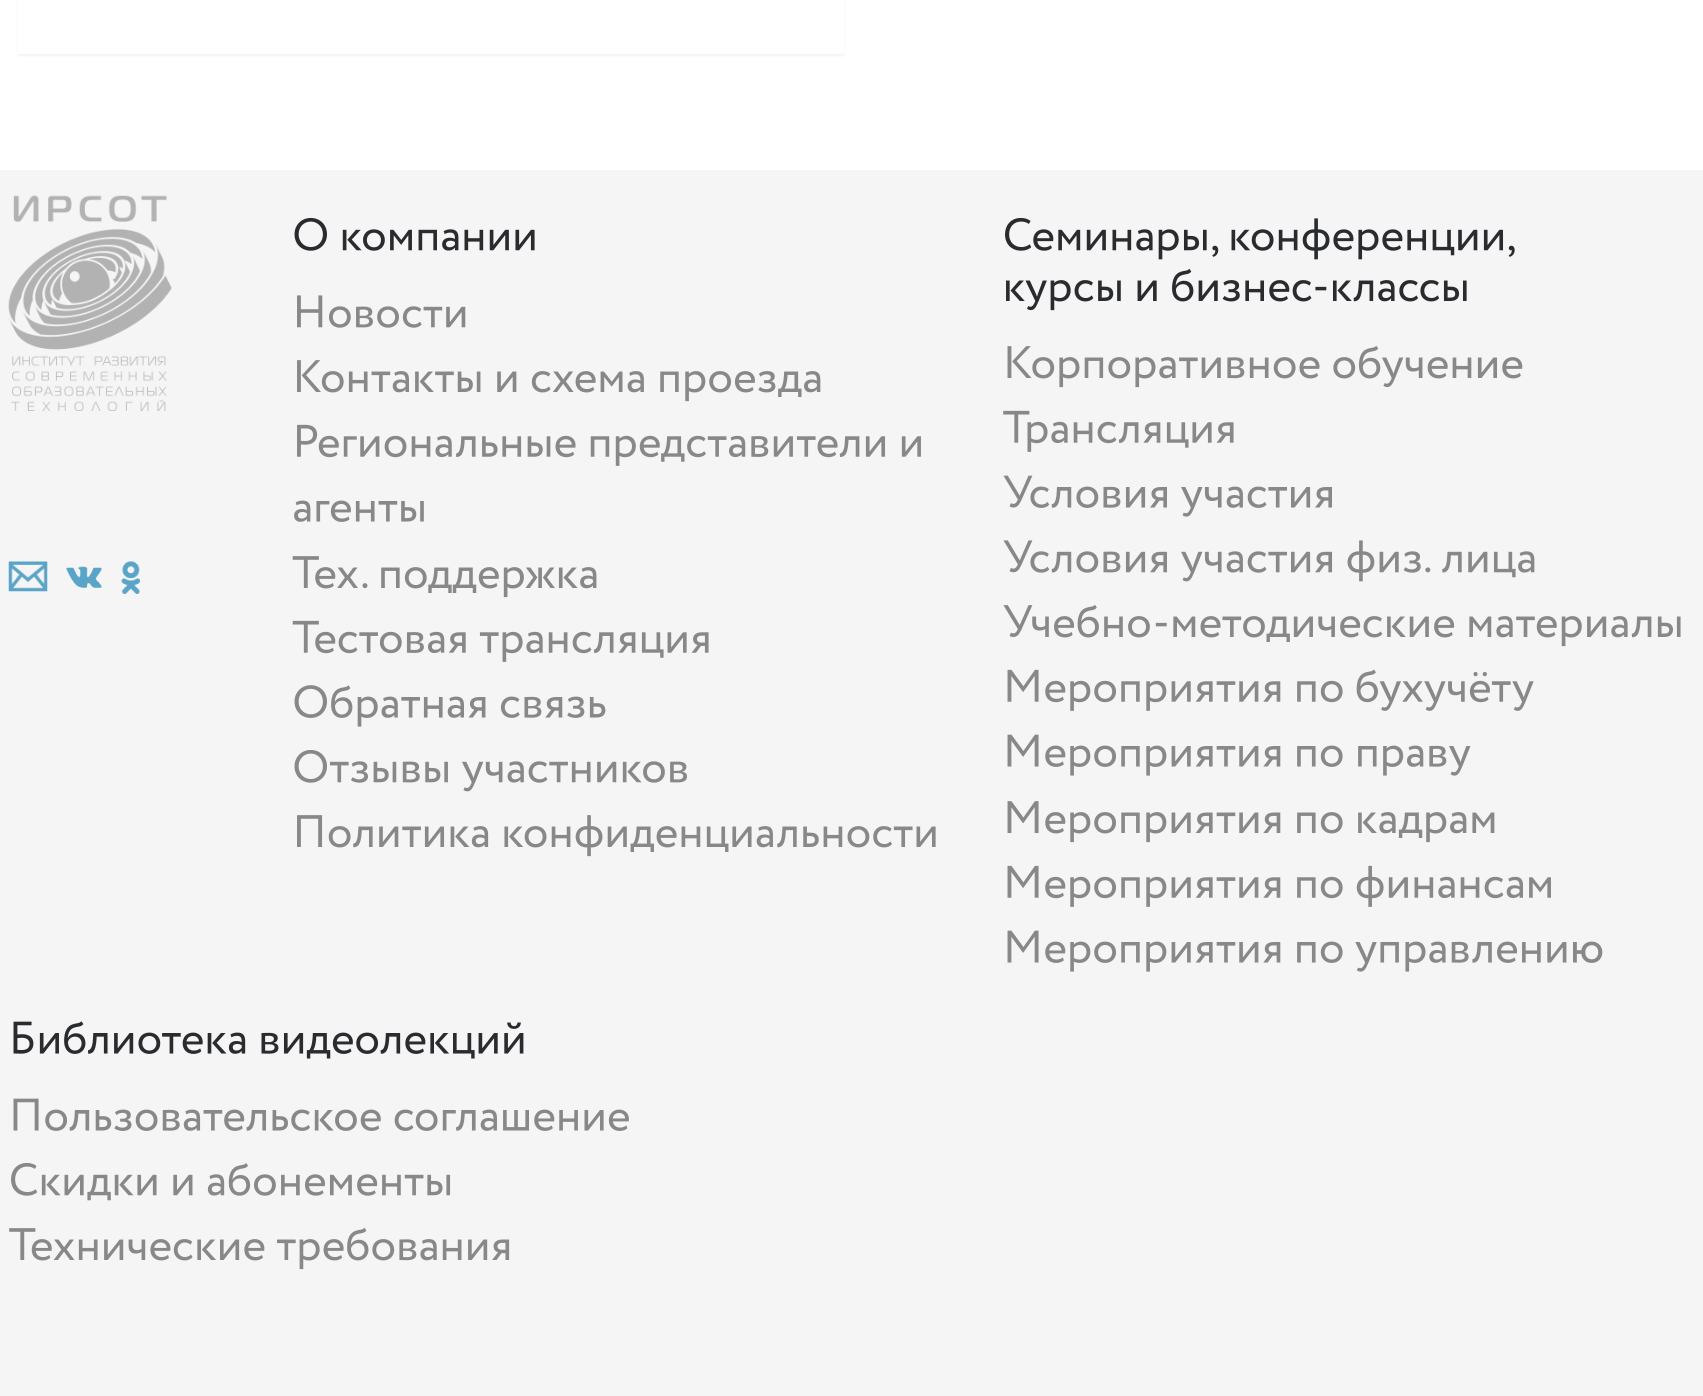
<?xml version="1.0" encoding="UTF-8"?>
<svg xmlns="http://www.w3.org/2000/svg" width="1703" height="1396">
    <defs>
        <filter id="blur1" x="-50%" y="-200%" width="200%" height="500%"><feGaussianBlur stdDeviation="1"/></filter>
    </defs>
    <rect width="100%" height="100%" fill="#FFFFFF"/>
    <rect x="18" y="-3" width="826" height="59" fill="#000000" fill-opacity="0.05" filter="url(#blur1)"/>
    <rect x="18" y="0" width="826" height="54" fill="#FFFFFF"/>
    <rect x="0" y="170" width="1703" height="1226" fill="#F5F5F5"/>
    <image x="8" y="195" width="164" height="216" href="img_01.png"/>
    <image x="8" y="561" width="40" height="31" href="img_02.png"/>
    <image x="66" y="566" width="36" height="22" href="img_03.png"/>
    <image x="121" y="561" width="20" height="33" href="img_04.png"/>
    <image x="294" y="217" width="241" height="34" href="img_05.png"/>
    <image x="297" y="295" width="169" height="33" href="img_06.png"/>
    <image x="297" y="360" width="524" height="42" href="img_07.png"/>
    <image x="297" y="424" width="624" height="42" href="img_08.png"/>
    <image x="294" y="500" width="130" height="22" href="img_09.png"/>
    <image x="292" y="556" width="305" height="42" href="img_10.png"/>
    <image x="292" y="620" width="417" height="42" href="img_11.png"/>
    <image x="294" y="685" width="312" height="42" href="img_12.png"/>
    <image x="294" y="749" width="393" height="43" href="img_13.png"/>
    <image x="297" y="815" width="639" height="42" href="img_14.png"/>
    <image x="1005" y="217" width="510" height="43" href="img_15.png"/>
    <image x="1006" y="268" width="461" height="43" href="img_16.png"/>
    <image x="1007" y="345" width="516" height="43" href="img_17.png"/>
    <image x="1003" y="410" width="231" height="42" href="img_18.png"/>
    <image x="1003" y="475" width="329" height="42" href="img_19.png"/>
    <image x="1003" y="540" width="532" height="42" href="img_20.png"/>
    <image x="1003" y="604" width="678" height="43" href="img_21.png"/>
    <image x="1007" y="669" width="527" height="42" href="img_22.png"/>
    <image x="1007" y="734" width="464" height="42" href="img_23.png"/>
    <image x="1007" y="801" width="488" height="42" href="img_24.png"/>
    <image x="1007" y="865" width="544" height="42" href="img_25.png"/>
    <image x="1007" y="930" width="596" height="42" href="img_26.png"/>
    <image x="13" y="1021" width="511" height="38" href="img_27.png"/>
    <image x="13" y="1098" width="616" height="33" href="img_28.png"/>
    <image x="11" y="1162" width="440" height="39" href="img_29.png"/>
    <image x="9" y="1227" width="501" height="43" href="img_30.png"/>
</svg>
